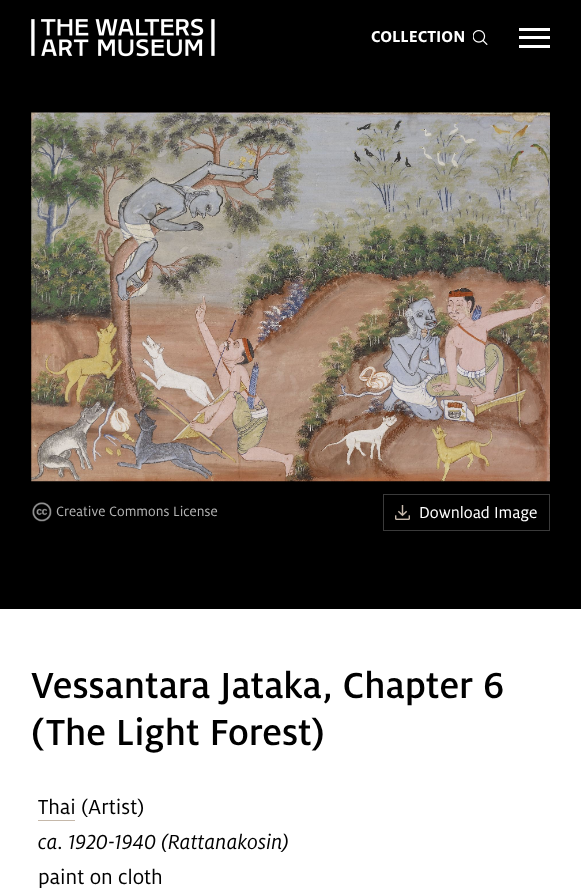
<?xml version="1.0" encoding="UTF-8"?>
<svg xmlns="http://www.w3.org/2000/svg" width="581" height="892">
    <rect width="100%" height="100%" fill="#FFFFFF"/>
    <rect x="0" y="0" width="581" height="609" fill="#000000"/>
    <image x="31" y="18" width="184" height="39" href="img_01.png"/>
    <text x="371" y="42" font-family="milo" font-size="17.5" font-weight="700" fill="#FFFFFF">COLLECTION</text>
    <image x="473" y="30" width="15" height="15" href="img_02.png"/>
    <rect x="519" y="28" width="31" height="3" fill="#FFFFFF"/>
    <rect x="519" y="36" width="31" height="3" fill="#FFFFFF"/>
    <rect x="519" y="45" width="31" height="3" fill="#FFFFFF"/>
    <image x="31" y="112" width="519" height="370" href="img_03.png"/>
    <image x="32" y="502" width="20" height="20" href="img_04.png"/>
    <text x="56" y="516" font-family="milo" font-size="15" fill="#B3B3B3">Creative Commons License</text>
    <rect x="383.5" y="494.5" width="166" height="36" fill="none" stroke="#3A3A3A"/>
    <image x="395" y="505" width="15" height="15" href="img_05.png"/>
    <text x="419" y="518" font-family="milo" font-size="17.5" fill="#FFFFFF">Download Image</text>
    <text font-family="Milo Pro" font-size="40" font-weight="500" fill="#000000">
        <tspan x="31" y="698">Vessantara Jataka, Chapter 6</tspan>
        <tspan x="31" y="745">(The Light Forest)</tspan>
    </text>
    <text x="38" y="814" font-family="milo" font-size="22.5" fill="#000000">Thai</text>
    <rect x="38" y="820" width="37" height="1" fill="#C5B8AA"/>
    <text x="81" y="814" font-family="milo" font-size="22.5" fill="#000000">(Artist)</text>
    <text x="38" y="849" font-family="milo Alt" font-size="22.5" font-style="italic" fill="#000000">ca. 1920-1940 (Rattanakosin)</text>
    <text x="38" y="884" font-family="milo" font-size="22.5" fill="#000000">paint on cloth</text>
</svg>
